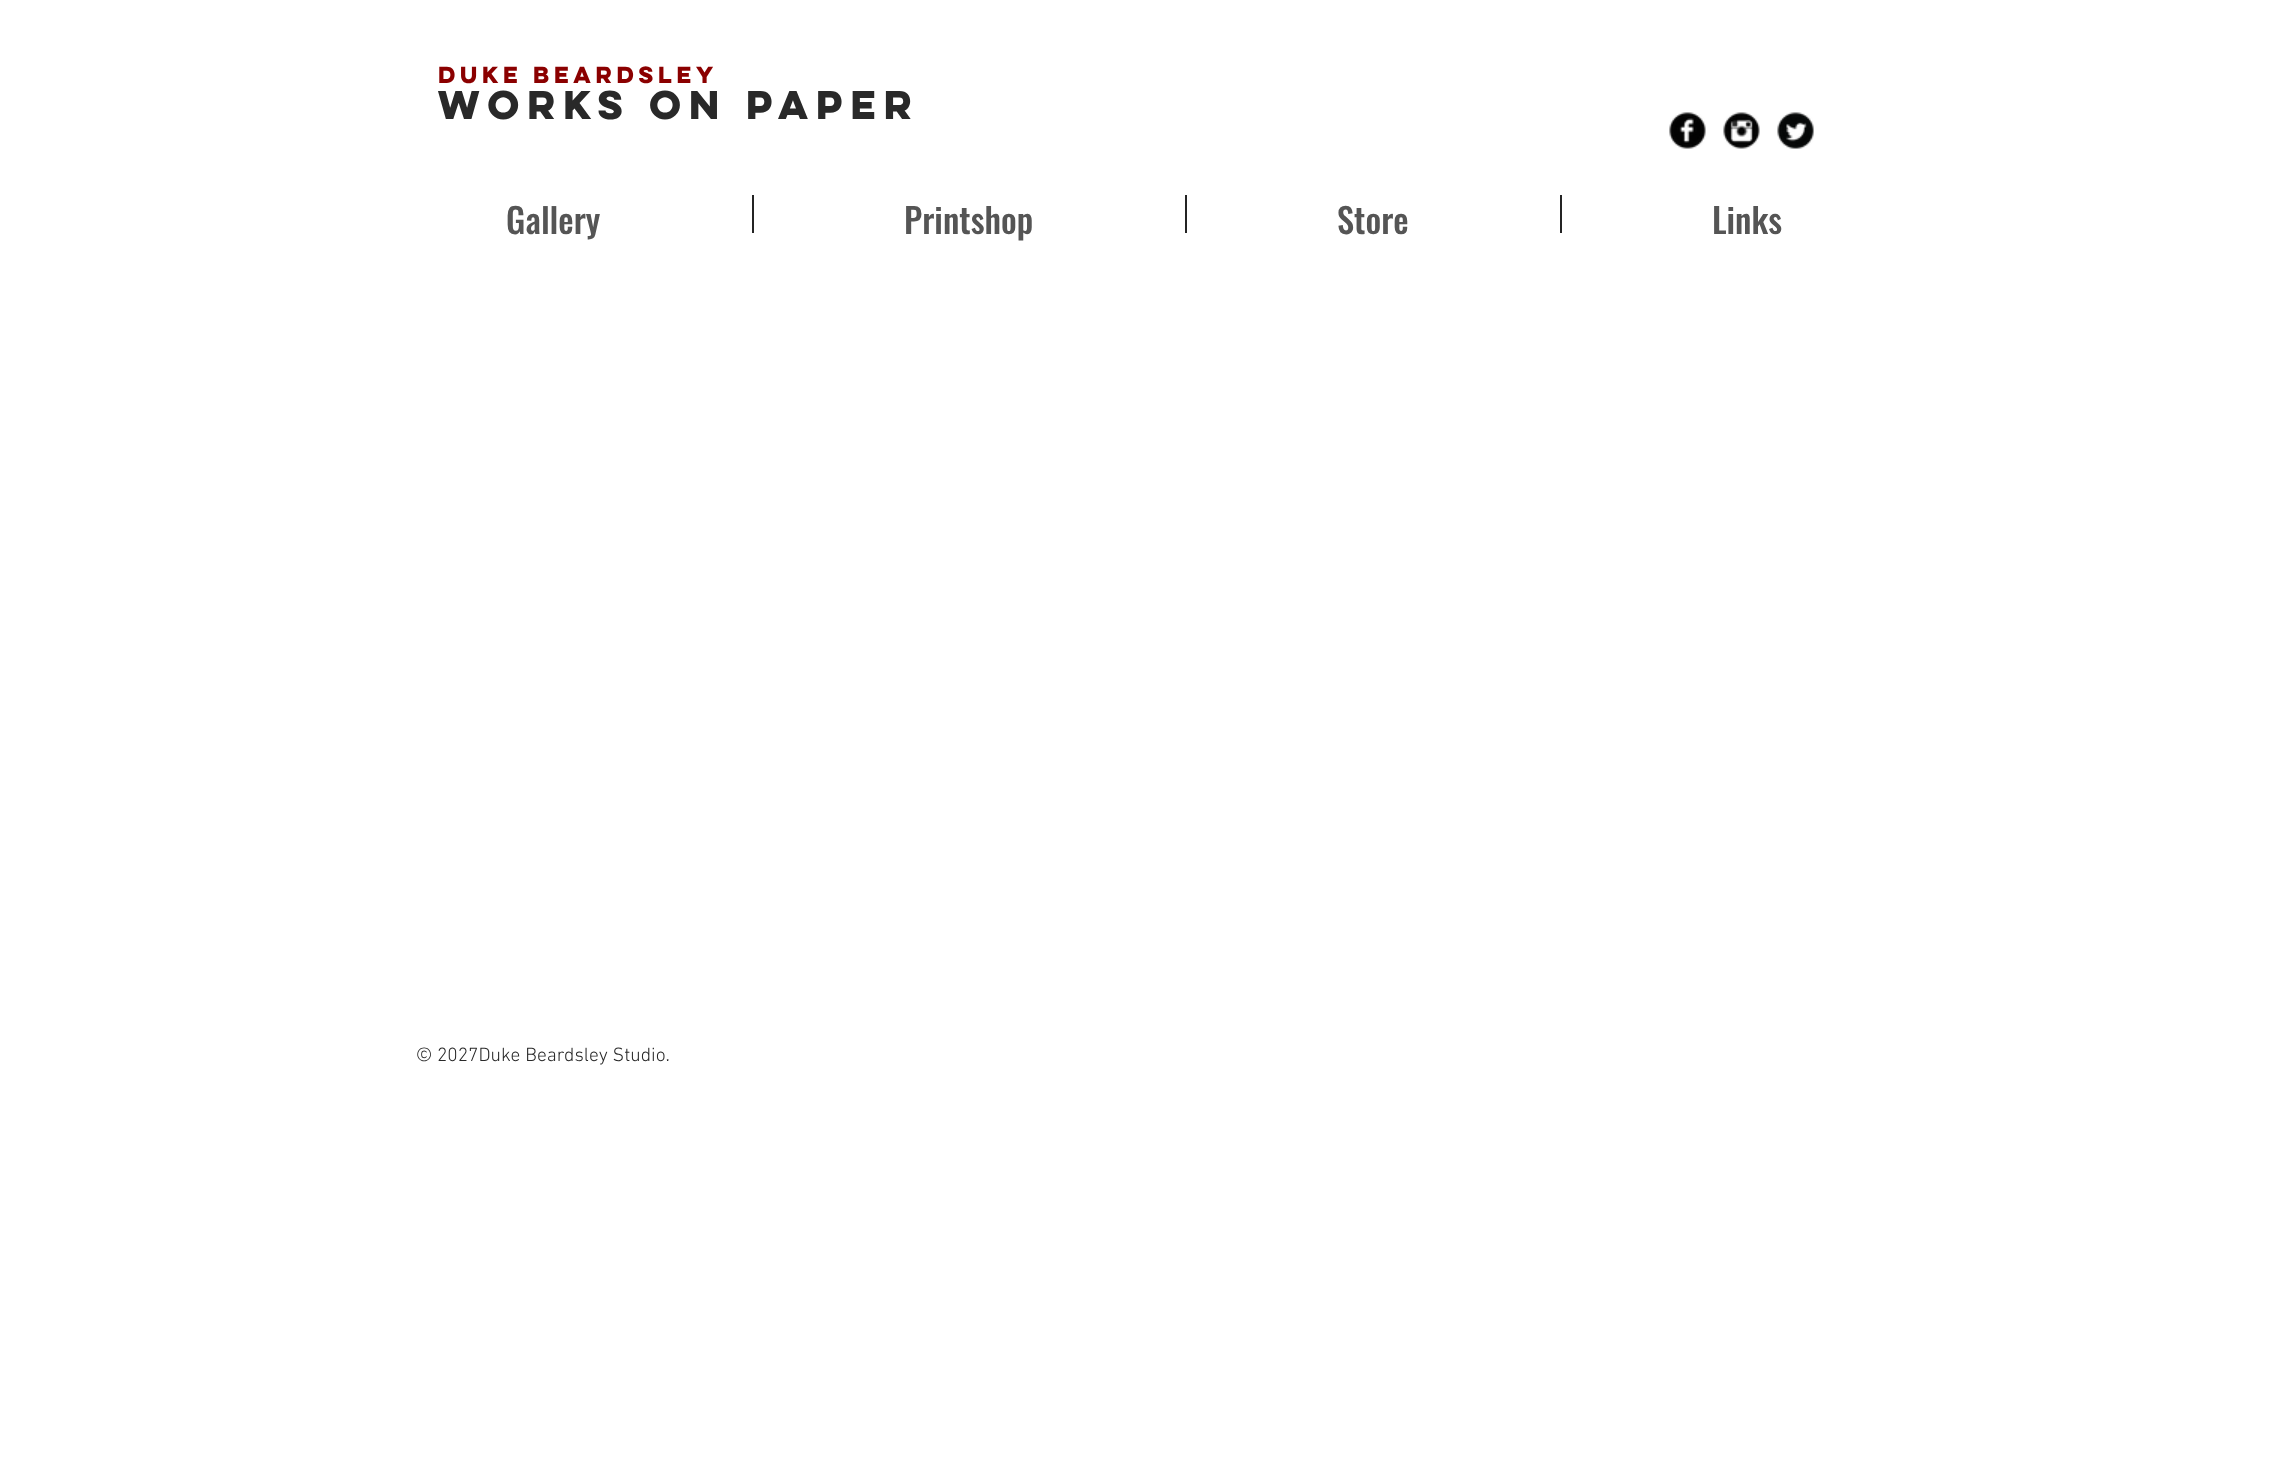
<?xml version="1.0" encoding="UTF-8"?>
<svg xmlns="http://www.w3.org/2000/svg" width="2285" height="1476">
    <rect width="100%" height="100%" fill="#FFFFFF"/>
    <text x="438" y="83" font-family="'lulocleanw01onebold'" font-size="21" font-weight="700" fill="#8B0000">Duke Beardsley</text>
    <text x="438" y="119" font-family="'lulocleanw01onebold'" font-size="36" font-weight="700" fill="#292929">Works on Paper</text>
    <image x="1669" y="112" width="37" height="37" href="img_01.png"/>
    <image x="1723" y="112" width="37" height="37" href="img_02.png"/>
    <image x="1777" y="112" width="37" height="37" href="img_03.png"/>
    <text x="506" y="234" font-family="Oswald" font-size="34.5" font-weight="500" fill="#555555">Gallery</text>
    <rect x="752" y="195" width="2" height="38" fill="#242424"/>
    <text x="904" y="234" font-family="Oswald" font-size="34.5" font-weight="500" fill="#555555">Printshop</text>
    <rect x="1185" y="195" width="2" height="38" fill="#242424"/>
    <text x="1337" y="234" font-family="Oswald" font-size="34.5" font-weight="500" fill="#555555">Store</text>
    <rect x="1560" y="195" width="2" height="38" fill="#242424"/>
    <text x="1712" y="234" font-family="Oswald" font-size="34.5" font-weight="500" fill="#555555">Links</text>
    <text x="416" y="1061" font-family="'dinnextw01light'" font-size="19.5" font-weight="300" fill="#292929">© 2027Duke Beardsley Studio.</text>
</svg>
